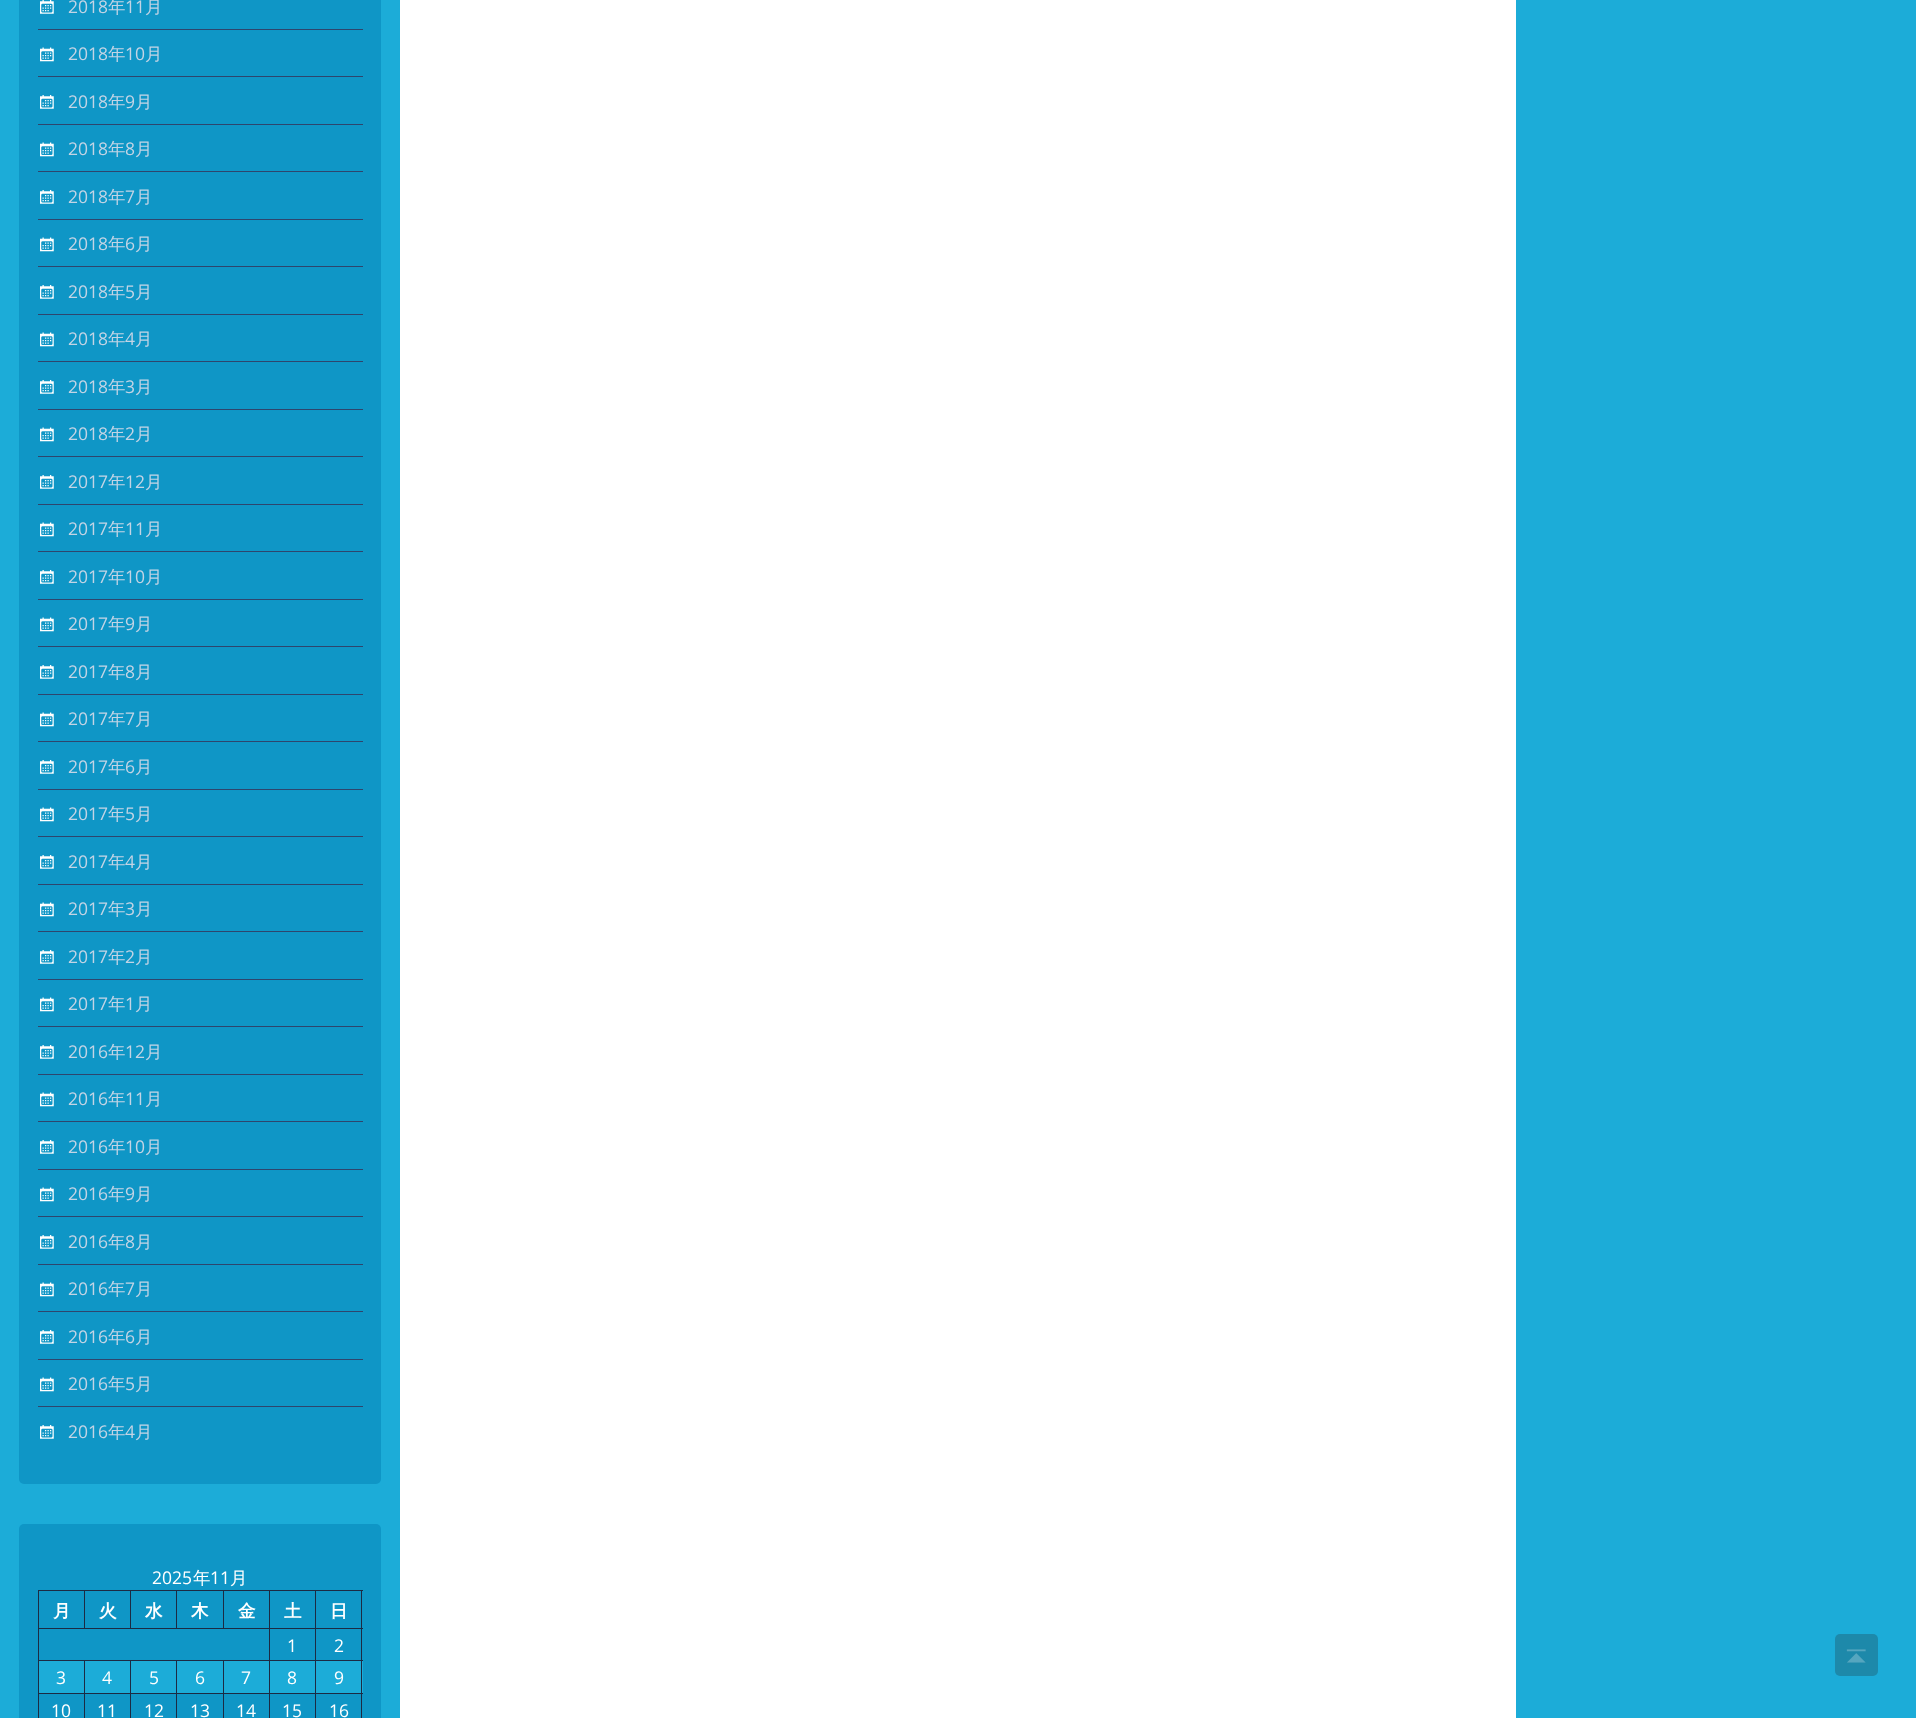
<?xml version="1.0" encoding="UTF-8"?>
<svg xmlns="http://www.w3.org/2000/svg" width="1916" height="1718">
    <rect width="100%" height="100%" fill="#FFFFFF"/>
    <rect x="0" y="0" width="400" height="1718" fill="#1CACD8"/>
    <rect x="19" y="-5" width="362" height="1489" rx="5" fill="#0F96C6"/>
    <image x="40" y="0" width="14" height="14" href="img_01.png"/>
    <text x="68" y="13" font-family="Open Sans" font-size="17.5" fill="#C3D4E5">2018</text>
    <text x="108" y="13" font-family="WenQuanYi Zen Hei" font-size="17.5" font-weight="500" fill="#C3D4E5">年</text>
    <text x="125" y="13" font-family="Open Sans" font-size="17.5" fill="#C3D4E5">11</text>
    <text x="145" y="13" font-family="WenQuanYi Zen Hei" font-size="17.5" font-weight="500" fill="#C3D4E5">月</text>
    <rect x="38" y="29" width="325" height="1" fill="#2E456D"/>
    <image x="40" y="47" width="14" height="15" href="img_02.png"/>
    <text x="68" y="60" font-family="Open Sans" font-size="17.5" fill="#C3D4E5">2018</text>
    <text x="108" y="60" font-family="WenQuanYi Zen Hei" font-size="17.5" font-weight="500" fill="#C3D4E5">年</text>
    <text x="125" y="60" font-family="Open Sans" font-size="17.5" fill="#C3D4E5">10</text>
    <text x="145" y="60" font-family="WenQuanYi Zen Hei" font-size="17.5" font-weight="500" fill="#C3D4E5">月</text>
    <rect x="38" y="76" width="325" height="1" fill="#2E456D"/>
    <image x="40" y="95" width="14" height="14" href="img_01.png"/>
    <text x="68" y="108" font-family="Open Sans" font-size="17.5" fill="#C3D4E5">2018</text>
    <text x="108" y="108" font-family="WenQuanYi Zen Hei" font-size="17.5" font-weight="500" fill="#C3D4E5">年</text>
    <text x="125" y="108" font-family="Open Sans" font-size="17.5" fill="#C3D4E5">9</text>
    <text x="135" y="108" font-family="WenQuanYi Zen Hei" font-size="17.5" font-weight="500" fill="#C3D4E5">月</text>
    <rect x="38" y="124" width="325" height="1" fill="#2E456D"/>
    <image x="40" y="142" width="14" height="15" href="img_02.png"/>
    <text x="68" y="155" font-family="Open Sans" font-size="17.5" fill="#C3D4E5">2018</text>
    <text x="108" y="155" font-family="WenQuanYi Zen Hei" font-size="17.5" font-weight="500" fill="#C3D4E5">年</text>
    <text x="125" y="155" font-family="Open Sans" font-size="17.5" fill="#C3D4E5">8</text>
    <text x="135" y="155" font-family="WenQuanYi Zen Hei" font-size="17.5" font-weight="500" fill="#C3D4E5">月</text>
    <rect x="38" y="171" width="325" height="1" fill="#2E456D"/>
    <image x="40" y="190" width="14" height="14" href="img_01.png"/>
    <text x="68" y="203" font-family="Open Sans" font-size="17.5" fill="#C3D4E5">2018</text>
    <text x="108" y="203" font-family="WenQuanYi Zen Hei" font-size="17.5" font-weight="500" fill="#C3D4E5">年</text>
    <text x="125" y="203" font-family="Open Sans" font-size="17.5" fill="#C3D4E5">7</text>
    <text x="135" y="203" font-family="WenQuanYi Zen Hei" font-size="17.5" font-weight="500" fill="#C3D4E5">月</text>
    <rect x="38" y="219" width="325" height="1" fill="#2E456D"/>
    <image x="40" y="237" width="14" height="15" href="img_02.png"/>
    <text x="68" y="250" font-family="Open Sans" font-size="17.5" fill="#C3D4E5">2018</text>
    <text x="108" y="250" font-family="WenQuanYi Zen Hei" font-size="17.5" font-weight="500" fill="#C3D4E5">年</text>
    <text x="125" y="250" font-family="Open Sans" font-size="17.5" fill="#C3D4E5">6</text>
    <text x="135" y="250" font-family="WenQuanYi Zen Hei" font-size="17.5" font-weight="500" fill="#C3D4E5">月</text>
    <rect x="38" y="266" width="325" height="1" fill="#2E456D"/>
    <image x="40" y="285" width="14" height="14" href="img_01.png"/>
    <text x="68" y="298" font-family="Open Sans" font-size="17.5" fill="#C3D4E5">2018</text>
    <text x="108" y="298" font-family="WenQuanYi Zen Hei" font-size="17.5" font-weight="500" fill="#C3D4E5">年</text>
    <text x="125" y="298" font-family="Open Sans" font-size="17.5" fill="#C3D4E5">5</text>
    <text x="135" y="298" font-family="WenQuanYi Zen Hei" font-size="17.5" font-weight="500" fill="#C3D4E5">月</text>
    <rect x="38" y="314" width="325" height="1" fill="#2E456D"/>
    <image x="40" y="332" width="14" height="15" href="img_02.png"/>
    <text x="68" y="345" font-family="Open Sans" font-size="17.5" fill="#C3D4E5">2018</text>
    <text x="108" y="345" font-family="WenQuanYi Zen Hei" font-size="17.5" font-weight="500" fill="#C3D4E5">年</text>
    <text x="125" y="345" font-family="Open Sans" font-size="17.5" fill="#C3D4E5">4</text>
    <text x="135" y="345" font-family="WenQuanYi Zen Hei" font-size="17.5" font-weight="500" fill="#C3D4E5">月</text>
    <rect x="38" y="361" width="325" height="1" fill="#2E456D"/>
    <image x="40" y="380" width="14" height="14" href="img_01.png"/>
    <text x="68" y="393" font-family="Open Sans" font-size="17.5" fill="#C3D4E5">2018</text>
    <text x="108" y="393" font-family="WenQuanYi Zen Hei" font-size="17.5" font-weight="500" fill="#C3D4E5">年</text>
    <text x="125" y="393" font-family="Open Sans" font-size="17.5" fill="#C3D4E5">3</text>
    <text x="135" y="393" font-family="WenQuanYi Zen Hei" font-size="17.5" font-weight="500" fill="#C3D4E5">月</text>
    <rect x="38" y="409" width="325" height="1" fill="#2E456D"/>
    <image x="40" y="427" width="14" height="15" href="img_02.png"/>
    <text x="68" y="440" font-family="Open Sans" font-size="17.5" fill="#C3D4E5">2018</text>
    <text x="108" y="440" font-family="WenQuanYi Zen Hei" font-size="17.5" font-weight="500" fill="#C3D4E5">年</text>
    <text x="125" y="440" font-family="Open Sans" font-size="17.5" fill="#C3D4E5">2</text>
    <text x="135" y="440" font-family="WenQuanYi Zen Hei" font-size="17.5" font-weight="500" fill="#C3D4E5">月</text>
    <rect x="38" y="456" width="325" height="1" fill="#2E456D"/>
    <image x="40" y="475" width="14" height="14" href="img_01.png"/>
    <text x="68" y="488" font-family="Open Sans" font-size="17.5" fill="#C3D4E5">2017</text>
    <text x="108" y="488" font-family="WenQuanYi Zen Hei" font-size="17.5" font-weight="500" fill="#C3D4E5">年</text>
    <text x="125" y="488" font-family="Open Sans" font-size="17.5" fill="#C3D4E5">12</text>
    <text x="145" y="488" font-family="WenQuanYi Zen Hei" font-size="17.5" font-weight="500" fill="#C3D4E5">月</text>
    <rect x="38" y="504" width="325" height="1" fill="#2E456D"/>
    <image x="40" y="522" width="14" height="15" href="img_02.png"/>
    <text x="68" y="535" font-family="Open Sans" font-size="17.5" fill="#C3D4E5">2017</text>
    <text x="108" y="535" font-family="WenQuanYi Zen Hei" font-size="17.5" font-weight="500" fill="#C3D4E5">年</text>
    <text x="125" y="535" font-family="Open Sans" font-size="17.5" fill="#C3D4E5">11</text>
    <text x="145" y="535" font-family="WenQuanYi Zen Hei" font-size="17.5" font-weight="500" fill="#C3D4E5">月</text>
    <rect x="38" y="551" width="325" height="1" fill="#2E456D"/>
    <image x="40" y="570" width="14" height="14" href="img_01.png"/>
    <text x="68" y="583" font-family="Open Sans" font-size="17.5" fill="#C3D4E5">2017</text>
    <text x="108" y="583" font-family="WenQuanYi Zen Hei" font-size="17.5" font-weight="500" fill="#C3D4E5">年</text>
    <text x="125" y="583" font-family="Open Sans" font-size="17.5" fill="#C3D4E5">10</text>
    <text x="145" y="583" font-family="WenQuanYi Zen Hei" font-size="17.5" font-weight="500" fill="#C3D4E5">月</text>
    <rect x="38" y="599" width="325" height="1" fill="#2E456D"/>
    <image x="40" y="617" width="14" height="15" href="img_02.png"/>
    <text x="68" y="630" font-family="Open Sans" font-size="17.5" fill="#C3D4E5">2017</text>
    <text x="108" y="630" font-family="WenQuanYi Zen Hei" font-size="17.5" font-weight="500" fill="#C3D4E5">年</text>
    <text x="125" y="630" font-family="Open Sans" font-size="17.5" fill="#C3D4E5">9</text>
    <text x="135" y="630" font-family="WenQuanYi Zen Hei" font-size="17.5" font-weight="500" fill="#C3D4E5">月</text>
    <rect x="38" y="646" width="325" height="1" fill="#2E456D"/>
    <image x="40" y="665" width="14" height="14" href="img_01.png"/>
    <text x="68" y="678" font-family="Open Sans" font-size="17.5" fill="#C3D4E5">2017</text>
    <text x="108" y="678" font-family="WenQuanYi Zen Hei" font-size="17.5" font-weight="500" fill="#C3D4E5">年</text>
    <text x="125" y="678" font-family="Open Sans" font-size="17.5" fill="#C3D4E5">8</text>
    <text x="135" y="678" font-family="WenQuanYi Zen Hei" font-size="17.5" font-weight="500" fill="#C3D4E5">月</text>
    <rect x="38" y="694" width="325" height="1" fill="#2E456D"/>
    <image x="40" y="712" width="14" height="15" href="img_02.png"/>
    <text x="68" y="725" font-family="Open Sans" font-size="17.5" fill="#C3D4E5">2017</text>
    <text x="108" y="725" font-family="WenQuanYi Zen Hei" font-size="17.5" font-weight="500" fill="#C3D4E5">年</text>
    <text x="125" y="725" font-family="Open Sans" font-size="17.5" fill="#C3D4E5">7</text>
    <text x="135" y="725" font-family="WenQuanYi Zen Hei" font-size="17.5" font-weight="500" fill="#C3D4E5">月</text>
    <rect x="38" y="741" width="325" height="1" fill="#2E456D"/>
    <image x="40" y="760" width="14" height="14" href="img_01.png"/>
    <text x="68" y="773" font-family="Open Sans" font-size="17.5" fill="#C3D4E5">2017</text>
    <text x="108" y="773" font-family="WenQuanYi Zen Hei" font-size="17.5" font-weight="500" fill="#C3D4E5">年</text>
    <text x="125" y="773" font-family="Open Sans" font-size="17.5" fill="#C3D4E5">6</text>
    <text x="135" y="773" font-family="WenQuanYi Zen Hei" font-size="17.5" font-weight="500" fill="#C3D4E5">月</text>
    <rect x="38" y="789" width="325" height="1" fill="#2E456D"/>
    <image x="40" y="807" width="14" height="15" href="img_02.png"/>
    <text x="68" y="820" font-family="Open Sans" font-size="17.5" fill="#C3D4E5">2017</text>
    <text x="108" y="820" font-family="WenQuanYi Zen Hei" font-size="17.5" font-weight="500" fill="#C3D4E5">年</text>
    <text x="125" y="820" font-family="Open Sans" font-size="17.5" fill="#C3D4E5">5</text>
    <text x="135" y="820" font-family="WenQuanYi Zen Hei" font-size="17.5" font-weight="500" fill="#C3D4E5">月</text>
    <rect x="38" y="836" width="325" height="1" fill="#2E456D"/>
    <image x="40" y="855" width="14" height="14" href="img_01.png"/>
    <text x="68" y="868" font-family="Open Sans" font-size="17.5" fill="#C3D4E5">2017</text>
    <text x="108" y="868" font-family="WenQuanYi Zen Hei" font-size="17.5" font-weight="500" fill="#C3D4E5">年</text>
    <text x="125" y="868" font-family="Open Sans" font-size="17.5" fill="#C3D4E5">4</text>
    <text x="135" y="868" font-family="WenQuanYi Zen Hei" font-size="17.5" font-weight="500" fill="#C3D4E5">月</text>
    <rect x="38" y="884" width="325" height="1" fill="#2E456D"/>
    <image x="40" y="902" width="14" height="15" href="img_02.png"/>
    <text x="68" y="915" font-family="Open Sans" font-size="17.5" fill="#C3D4E5">2017</text>
    <text x="108" y="915" font-family="WenQuanYi Zen Hei" font-size="17.5" font-weight="500" fill="#C3D4E5">年</text>
    <text x="125" y="915" font-family="Open Sans" font-size="17.5" fill="#C3D4E5">3</text>
    <text x="135" y="915" font-family="WenQuanYi Zen Hei" font-size="17.5" font-weight="500" fill="#C3D4E5">月</text>
    <rect x="38" y="931" width="325" height="1" fill="#2E456D"/>
    <image x="40" y="950" width="14" height="14" href="img_01.png"/>
    <text x="68" y="963" font-family="Open Sans" font-size="17.5" fill="#C3D4E5">2017</text>
    <text x="108" y="963" font-family="WenQuanYi Zen Hei" font-size="17.5" font-weight="500" fill="#C3D4E5">年</text>
    <text x="125" y="963" font-family="Open Sans" font-size="17.5" fill="#C3D4E5">2</text>
    <text x="135" y="963" font-family="WenQuanYi Zen Hei" font-size="17.5" font-weight="500" fill="#C3D4E5">月</text>
    <rect x="38" y="979" width="325" height="1" fill="#2E456D"/>
    <image x="40" y="997" width="14" height="15" href="img_02.png"/>
    <text x="68" y="1010" font-family="Open Sans" font-size="17.5" fill="#C3D4E5">2017</text>
    <text x="108" y="1010" font-family="WenQuanYi Zen Hei" font-size="17.5" font-weight="500" fill="#C3D4E5">年</text>
    <text x="125" y="1010" font-family="Open Sans" font-size="17.5" fill="#C3D4E5">1</text>
    <text x="135" y="1010" font-family="WenQuanYi Zen Hei" font-size="17.5" font-weight="500" fill="#C3D4E5">月</text>
    <rect x="38" y="1026" width="325" height="1" fill="#2E456D"/>
    <image x="40" y="1045" width="14" height="14" href="img_01.png"/>
    <text x="68" y="1058" font-family="Open Sans" font-size="17.5" fill="#C3D4E5">2016</text>
    <text x="108" y="1058" font-family="WenQuanYi Zen Hei" font-size="17.5" font-weight="500" fill="#C3D4E5">年</text>
    <text x="125" y="1058" font-family="Open Sans" font-size="17.5" fill="#C3D4E5">12</text>
    <text x="145" y="1058" font-family="WenQuanYi Zen Hei" font-size="17.5" font-weight="500" fill="#C3D4E5">月</text>
    <rect x="38" y="1074" width="325" height="1" fill="#2E456D"/>
    <image x="40" y="1092" width="14" height="15" href="img_02.png"/>
    <text x="68" y="1105" font-family="Open Sans" font-size="17.5" fill="#C3D4E5">2016</text>
    <text x="108" y="1105" font-family="WenQuanYi Zen Hei" font-size="17.5" font-weight="500" fill="#C3D4E5">年</text>
    <text x="125" y="1105" font-family="Open Sans" font-size="17.5" fill="#C3D4E5">11</text>
    <text x="145" y="1105" font-family="WenQuanYi Zen Hei" font-size="17.5" font-weight="500" fill="#C3D4E5">月</text>
    <rect x="38" y="1121" width="325" height="1" fill="#2E456D"/>
    <image x="40" y="1140" width="14" height="14" href="img_01.png"/>
    <text x="68" y="1153" font-family="Open Sans" font-size="17.5" fill="#C3D4E5">2016</text>
    <text x="108" y="1153" font-family="WenQuanYi Zen Hei" font-size="17.5" font-weight="500" fill="#C3D4E5">年</text>
    <text x="125" y="1153" font-family="Open Sans" font-size="17.5" fill="#C3D4E5">10</text>
    <text x="145" y="1153" font-family="WenQuanYi Zen Hei" font-size="17.5" font-weight="500" fill="#C3D4E5">月</text>
    <rect x="38" y="1169" width="325" height="1" fill="#2E456D"/>
    <image x="40" y="1187" width="14" height="15" href="img_02.png"/>
    <text x="68" y="1200" font-family="Open Sans" font-size="17.5" fill="#C3D4E5">2016</text>
    <text x="108" y="1200" font-family="WenQuanYi Zen Hei" font-size="17.5" font-weight="500" fill="#C3D4E5">年</text>
    <text x="125" y="1200" font-family="Open Sans" font-size="17.5" fill="#C3D4E5">9</text>
    <text x="135" y="1200" font-family="WenQuanYi Zen Hei" font-size="17.5" font-weight="500" fill="#C3D4E5">月</text>
    <rect x="38" y="1216" width="325" height="1" fill="#2E456D"/>
    <image x="40" y="1235" width="14" height="14" href="img_01.png"/>
    <text x="68" y="1248" font-family="Open Sans" font-size="17.5" fill="#C3D4E5">2016</text>
    <text x="108" y="1248" font-family="WenQuanYi Zen Hei" font-size="17.5" font-weight="500" fill="#C3D4E5">年</text>
    <text x="125" y="1248" font-family="Open Sans" font-size="17.5" fill="#C3D4E5">8</text>
    <text x="135" y="1248" font-family="WenQuanYi Zen Hei" font-size="17.5" font-weight="500" fill="#C3D4E5">月</text>
    <rect x="38" y="1264" width="325" height="1" fill="#2E456D"/>
    <image x="40" y="1282" width="14" height="15" href="img_02.png"/>
    <text x="68" y="1295" font-family="Open Sans" font-size="17.5" fill="#C3D4E5">2016</text>
    <text x="108" y="1295" font-family="WenQuanYi Zen Hei" font-size="17.5" font-weight="500" fill="#C3D4E5">年</text>
    <text x="125" y="1295" font-family="Open Sans" font-size="17.5" fill="#C3D4E5">7</text>
    <text x="135" y="1295" font-family="WenQuanYi Zen Hei" font-size="17.5" font-weight="500" fill="#C3D4E5">月</text>
    <rect x="38" y="1311" width="325" height="1" fill="#2E456D"/>
    <image x="40" y="1330" width="14" height="14" href="img_01.png"/>
    <text x="68" y="1343" font-family="Open Sans" font-size="17.5" fill="#C3D4E5">2016</text>
    <text x="108" y="1343" font-family="WenQuanYi Zen Hei" font-size="17.5" font-weight="500" fill="#C3D4E5">年</text>
    <text x="125" y="1343" font-family="Open Sans" font-size="17.5" fill="#C3D4E5">6</text>
    <text x="135" y="1343" font-family="WenQuanYi Zen Hei" font-size="17.5" font-weight="500" fill="#C3D4E5">月</text>
    <rect x="38" y="1359" width="325" height="1" fill="#2E456D"/>
    <image x="40" y="1377" width="14" height="15" href="img_02.png"/>
    <text x="68" y="1390" font-family="Open Sans" font-size="17.5" fill="#C3D4E5">2016</text>
    <text x="108" y="1390" font-family="WenQuanYi Zen Hei" font-size="17.5" font-weight="500" fill="#C3D4E5">年</text>
    <text x="125" y="1390" font-family="Open Sans" font-size="17.5" fill="#C3D4E5">5</text>
    <text x="135" y="1390" font-family="WenQuanYi Zen Hei" font-size="17.5" font-weight="500" fill="#C3D4E5">月</text>
    <rect x="38" y="1406" width="325" height="1" fill="#2E456D"/>
    <image x="40" y="1425" width="14" height="14" href="img_01.png"/>
    <text x="68" y="1438" font-family="Open Sans" font-size="17.5" fill="#C3D4E5">2016</text>
    <text x="108" y="1438" font-family="WenQuanYi Zen Hei" font-size="17.5" font-weight="500" fill="#C3D4E5">年</text>
    <text x="125" y="1438" font-family="Open Sans" font-size="17.5" fill="#C3D4E5">4</text>
    <text x="135" y="1438" font-family="WenQuanYi Zen Hei" font-size="17.5" font-weight="500" fill="#C3D4E5">月</text>
    <rect x="19" y="1524" width="362" height="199" rx="5" fill="#0F96C6"/>
    <text x="152" y="1584" font-family="Open Sans" font-size="17.5" fill="#FFFFFF">2025</text>
    <text x="193" y="1584" font-family="WenQuanYi Zen Hei" font-size="17.5" font-weight="500" fill="#FFFFFF">年</text>
    <text x="210" y="1584" font-family="Open Sans" font-size="17.5" fill="#FFFFFF">11</text>
    <text x="230" y="1584" font-family="WenQuanYi Zen Hei" font-size="17.5" font-weight="500" fill="#FFFFFF">月</text>
    <rect x="315" y="1590" width="48" height="1" fill="#1C2A43"/>
    <rect x="315" y="1628" width="48" height="1" fill="#1C2A43"/>
    <rect x="315" y="1660" width="48" height="1" fill="#1C2A43"/>
    <rect x="39" y="1661" width="324" height="32" fill="#1CACD8"/>
    <rect x="315" y="1693" width="48" height="1" fill="#1C2A43"/>
    <rect x="315" y="1693" width="1" height="25" fill="#1C2A43"/>
    <rect x="269" y="1693" width="47" height="1" fill="#1C2A43"/>
    <rect x="315" y="1660" width="1" height="34" fill="#1C2A43"/>
    <rect x="269" y="1660" width="47" height="1" fill="#1C2A43"/>
    <rect x="315" y="1628" width="1" height="33" fill="#1C2A43"/>
    <rect x="269" y="1628" width="47" height="1" fill="#1C2A43"/>
    <rect x="315" y="1590" width="1" height="39" fill="#1C2A43"/>
    <rect x="269" y="1590" width="47" height="1" fill="#1C2A43"/>
    <rect x="269" y="1693" width="1" height="25" fill="#1C2A43"/>
    <rect x="223" y="1693" width="47" height="1" fill="#1C2A43"/>
    <rect x="269" y="1660" width="1" height="34" fill="#1C2A43"/>
    <rect x="223" y="1660" width="47" height="1" fill="#1C2A43"/>
    <rect x="269" y="1628" width="1" height="33" fill="#1C2A43"/>
    <rect x="38" y="1628" width="232" height="1" fill="#1C2A43"/>
    <rect x="269" y="1590" width="1" height="39" fill="#1C2A43"/>
    <rect x="223" y="1590" width="47" height="1" fill="#1C2A43"/>
    <rect x="223" y="1590" width="1" height="39" fill="#1C2A43"/>
    <rect x="176" y="1590" width="48" height="1" fill="#1C2A43"/>
    <rect x="176" y="1590" width="1" height="39" fill="#1C2A43"/>
    <rect x="130" y="1590" width="48" height="1" fill="#1C2A43"/>
    <rect x="130" y="1590" width="1" height="39" fill="#1C2A43"/>
    <rect x="84" y="1590" width="47" height="1" fill="#1C2A43"/>
    <rect x="84" y="1590" width="1" height="39" fill="#1C2A43"/>
    <rect x="38" y="1590" width="47" height="1" fill="#1C2A43"/>
    <rect x="223" y="1693" width="1" height="25" fill="#1C2A43"/>
    <rect x="176" y="1693" width="48" height="1" fill="#1C2A43"/>
    <rect x="223" y="1660" width="1" height="34" fill="#1C2A43"/>
    <rect x="176" y="1660" width="48" height="1" fill="#1C2A43"/>
    <rect x="176" y="1693" width="1" height="25" fill="#1C2A43"/>
    <rect x="130" y="1693" width="48" height="1" fill="#1C2A43"/>
    <rect x="176" y="1660" width="1" height="34" fill="#1C2A43"/>
    <rect x="130" y="1660" width="48" height="1" fill="#1C2A43"/>
    <rect x="130" y="1693" width="1" height="25" fill="#1C2A43"/>
    <rect x="84" y="1693" width="47" height="1" fill="#1C2A43"/>
    <rect x="130" y="1660" width="1" height="34" fill="#1C2A43"/>
    <rect x="84" y="1660" width="47" height="1" fill="#1C2A43"/>
    <rect x="84" y="1693" width="1" height="25" fill="#1C2A43"/>
    <rect x="38" y="1693" width="47" height="1" fill="#1C2A43"/>
    <rect x="84" y="1660" width="1" height="34" fill="#1C2A43"/>
    <rect x="38" y="1660" width="47" height="1" fill="#1C2A43"/>
    <rect x="38" y="1693" width="1" height="25" fill="#1C2A43"/>
    <rect x="38" y="1660" width="1" height="34" fill="#1C2A43"/>
    <rect x="38" y="1628" width="1" height="33" fill="#1C2A43"/>
    <rect x="38" y="1590" width="1" height="39" fill="#1C2A43"/>
    <text x="53" y="1617" font-family="WenQuanYi Zen Hei" font-size="17.5" font-weight="700" fill="#FFFFFF">月</text>
    <text x="99" y="1617" font-family="WenQuanYi Zen Hei" font-size="17.5" font-weight="700" fill="#FFFFFF">火</text>
    <text x="145" y="1617" font-family="WenQuanYi Zen Hei" font-size="17.5" font-weight="700" fill="#FFFFFF">水</text>
    <text x="191" y="1617" font-family="WenQuanYi Zen Hei" font-size="17.5" font-weight="700" fill="#FFFFFF">木</text>
    <text x="238" y="1617" font-family="WenQuanYi Zen Hei" font-size="17.5" font-weight="700" fill="#FFFFFF">金</text>
    <text x="284" y="1617" font-family="WenQuanYi Zen Hei" font-size="17.5" font-weight="700" fill="#FFFFFF">土</text>
    <rect x="361" y="1693" width="1" height="25" fill="#1C2A43"/>
    <rect x="361" y="1660" width="1" height="34" fill="#1C2A43"/>
    <rect x="361" y="1628" width="1" height="33" fill="#1C2A43"/>
    <rect x="361" y="1590" width="1" height="39" fill="#1C2A43"/>
    <text x="330" y="1617" font-family="WenQuanYi Zen Hei" font-size="17.5" font-weight="700" fill="#FFFFFF">日</text>
    <text x="287" y="1652" font-family="Open Sans" font-size="17.5" fill="#FFFFFF">1</text>
    <text x="334" y="1652" font-family="Open Sans" font-size="17.5" fill="#FFFFFF">2</text>
    <text x="56" y="1684" font-family="Open Sans" font-size="17.5" fill="#FFFFFF">3</text>
    <text x="102" y="1684" font-family="Open Sans" font-size="17.5" fill="#FFFFFF">4</text>
    <text x="149" y="1684" font-family="Open Sans" font-size="17.5" fill="#FFFFFF">5</text>
    <text x="195" y="1684" font-family="Open Sans" font-size="17.5" fill="#FFFFFF">6</text>
    <text x="241" y="1684" font-family="Open Sans" font-size="17.5" fill="#FFFFFF">7</text>
    <text x="287" y="1684" font-family="Open Sans" font-size="17.5" fill="#FFFFFF">8</text>
    <text x="334" y="1684" font-family="Open Sans" font-size="17.5" fill="#FFFFFF">9</text>
    <text x="51" y="1717" font-family="Open Sans" font-size="17.5" fill="#FFFFFF">10</text>
    <text x="97" y="1717" font-family="Open Sans" font-size="17.5" fill="#FFFFFF">11</text>
    <text x="144" y="1717" font-family="Open Sans" font-size="17.5" fill="#FFFFFF">12</text>
    <text x="190" y="1717" font-family="Open Sans" font-size="17.5" fill="#FFFFFF">13</text>
    <text x="236" y="1717" font-family="Open Sans" font-size="17.5" fill="#FFFFFF">14</text>
    <text x="282" y="1717" font-family="Open Sans" font-size="17.5" fill="#FFFFFF">15</text>
    <text x="329" y="1717" font-family="Open Sans" font-size="17.5" fill="#FFFFFF">16</text>
    <rect x="1516" y="0" width="400" height="1718" fill="#1CACD8"/>
    <rect x="1835" y="1634" width="43" height="42" rx="5" fill="#1D89AA"/>
    <image x="1846" y="1649" width="20" height="14" href="img_03.png"/>
</svg>
